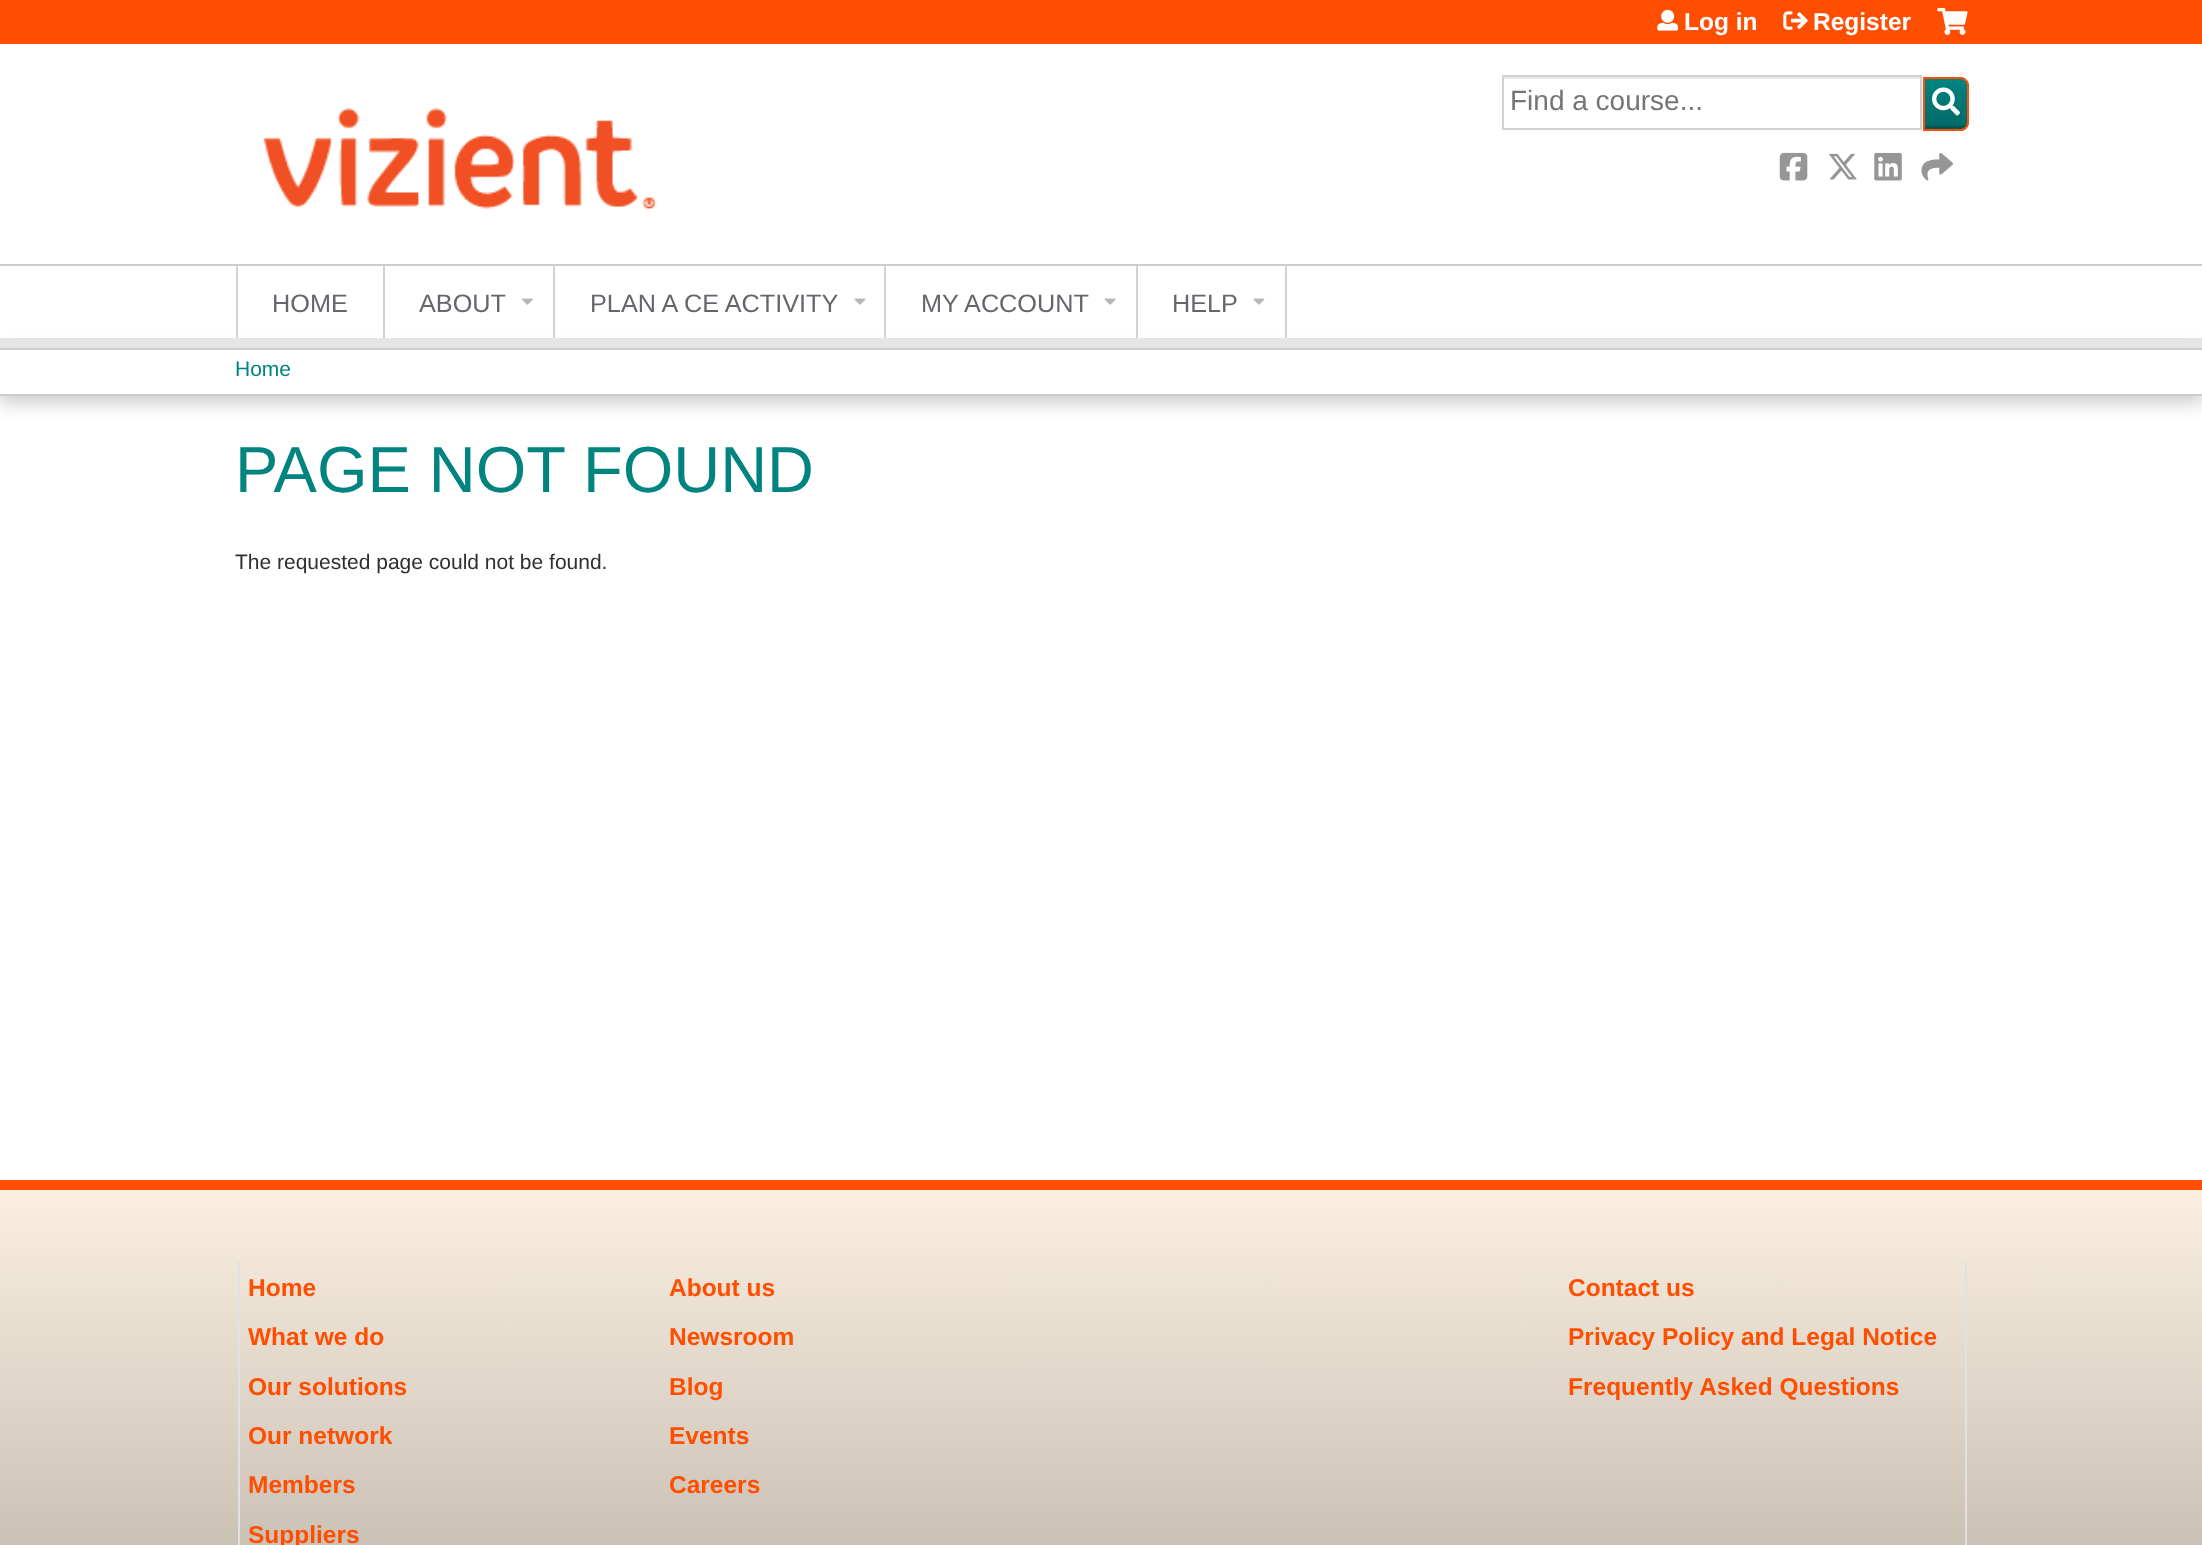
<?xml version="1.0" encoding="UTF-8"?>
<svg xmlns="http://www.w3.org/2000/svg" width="2202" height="1545">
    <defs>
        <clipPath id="clip1"><path d="M 1923 77 H 1960 C 1965 77 1969 81 1969 86 V 122 C 1969 127 1965 131 1960 131 H 1923 Z"/></clipPath>
        <linearGradient id="g1" gradientUnits="userSpaceOnUse" x1="1946" y1="130" x2="1946" y2="79"><stop offset="0" stop-color="#000000" stop-opacity="0.2"/><stop offset="1" stop-color="#000000" stop-opacity="0"/></linearGradient>
        <filter id="blur1" x="-50%" y="-200%" width="200%" height="500%"><feGaussianBlur stdDeviation="9"/></filter>
        <linearGradient id="g2" gradientUnits="userSpaceOnUse" x1="1102" y1="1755" x2="1102" y2="1190"><stop offset="0" stop-color="#AFA79D"/><stop offset="1" stop-color="#FAEFE0"/></linearGradient>
    </defs>
    <rect width="100%" height="100%" fill="#FFFFFF"/>
    <rect x="0" y="0" width="2202" height="44" fill="#FF4E00"/>
    <image x="1657" y="9" width="22" height="22" href="img_01.png"/>
    <text x="1684" y="30" font-family="Liberation Sans" font-size="24.5" font-weight="700" fill="#FFFFFF">Log in</text>
    <image x="1783" y="11" width="25" height="19" href="img_02.png"/>
    <text x="1813" y="30" font-family="Liberation Sans" font-size="24.5" font-weight="700" fill="#FFFFFF">Register</text>
    <image x="1937" y="7" width="31" height="28" href="img_03.png"/>
    <path d="M 1923 77 H 1960 C 1965 77 1969 81 1969 86 V 122 C 1969 127 1965 131 1960 131 H 1923 Z" fill="#018380"/>
    <g clip-path="url(#clip1)">
        <rect x="1925" y="84" width="44" height="46" fill="url(#g1)"/>
    </g>
    <path d="M 1925 126 V 130 H 1948 C 1954 130 1967 132 1967 123 C 1965 125 1963 126 1960 126 Z" fill="#000000" fill-opacity="0.2"/>
    <path d="M 1924 78 H 1960 C 1964.5 78 1968 81.5 1968 86 V 122 C 1968 126.5 1964.5 130 1960 130 H 1924 Z" fill="none" stroke="#FF4E00" stroke-width="2"/>
    <rect x="1503" y="77" width="417" height="2" fill="#E6E6E6"/>
    <rect x="1503" y="76" width="418" height="53" fill="none" stroke="#D1D1D1" stroke-width="2"/>
    <text x="1510" y="110" font-family="Liberation Sans" font-size="28" fill="#757575">Find a course...</text>
    <image x="1932" y="87" width="28" height="29" href="img_04.png"/>
    <image x="1779" y="152" width="29" height="29" href="img_05.png"/>
    <image x="1828" y="153" width="29" height="27" href="img_06.png"/>
    <image x="1874" y="152" width="28" height="29" href="img_07.png"/>
    <image x="1921" y="152" width="32" height="29" href="img_08.png"/>
    <image x="263" y="108" width="394" height="101" href="img_09.png"/>
    <rect x="-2" y="352" width="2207" height="51" fill="#000000" fill-opacity="0.2" filter="url(#blur1)"/>
    <rect x="12" y="337" width="2179" height="1" fill="#FFFFFF"/>
    <rect x="0" y="264" width="2202" height="2" fill="#CCCCCC"/>
    <rect x="0" y="338" width="2202" height="10" fill="#E5E5E5"/>
    <rect x="383" y="266" width="2" height="72" fill="#D2D2D2"/>
    <rect x="236" y="266" width="2" height="72" fill="#D2D2D2"/>
    <text x="272" y="312" font-family="Liberation Sans" font-size="25.25" fill="#64666B">HOME</text>
    <rect x="553" y="266" width="2" height="72" fill="#D2D2D2"/>
    <text x="419" y="312" font-family="Liberation Sans" font-size="25.25" fill="#64666B">ABOUT</text>
    <image x="522" y="298" width="11" height="7" href="img_10.png"/>
    <rect x="884" y="266" width="2" height="72" fill="#D2D2D2"/>
    <text x="590" y="312" font-family="Liberation Sans" font-size="25.25" fill="#64666B">PLAN A CE ACTIVITY</text>
    <image x="854" y="298" width="12" height="7" href="img_11.png"/>
    <rect x="1136" y="266" width="2" height="72" fill="#D2D2D2"/>
    <text x="921" y="312" font-family="Liberation Sans" font-size="25.25" fill="#64666B">MY ACCOUNT</text>
    <image x="1104" y="298" width="12" height="7" href="img_12.png"/>
    <rect x="1285" y="266" width="2" height="72" fill="#D2D2D2"/>
    <text x="1172" y="312" font-family="Liberation Sans" font-size="25.25" fill="#64666B">HELP</text>
    <image x="1253" y="298" width="12" height="7" href="img_11.png"/>
    <rect x="0" y="350" width="2202" height="44" fill="#FFFFFF"/>
    <rect x="0" y="348" width="2202" height="2" fill="#CCCCCC"/>
    <rect x="0" y="394" width="2202" height="2" fill="#CCCCCC"/>
    <text x="235" y="376" font-family="Liberation Sans" font-size="21" fill="#018380">Home</text>
    <text x="235" y="492" font-family="Liberation Sans" font-size="65" fill="#018380">PAGE NOT FOUND</text>
    <text x="235" y="569" font-family="Liberation Sans" font-size="21" fill="#2F2F2F">The requested page could not be found.</text>
    <rect x="0" y="1190" width="2202" height="355" fill="url(#g2)"/>
    <rect x="0" y="1180" width="2202" height="10" fill="#FF4E00"/>
    <rect x="1965" y="1262" width="2" height="283" fill="#E1E1E1"/>
    <rect x="238" y="1262" width="2" height="283" fill="#E1E1E1"/>
    <text x="248" y="1296" font-family="Liberation Sans" font-size="24.5" font-weight="700" fill="#FF4E00">Home</text>
    <text x="669" y="1296" font-family="Liberation Sans" font-size="24.5" font-weight="700" fill="#FF4E00">About us</text>
    <text x="1568" y="1296" font-family="Liberation Sans" font-size="24.5" font-weight="700" fill="#FF4E00">Contact us</text>
    <text x="248" y="1345" font-family="Liberation Sans" font-size="24.5" font-weight="700" fill="#FF4E00">What we do</text>
    <text x="669" y="1345" font-family="Liberation Sans" font-size="24.5" font-weight="700" fill="#FF4E00">Newsroom</text>
    <text x="1568" y="1345" font-family="Liberation Sans" font-size="24.5" font-weight="700" fill="#FF4E00">Privacy Policy and Legal Notice</text>
    <text x="248" y="1395" font-family="Liberation Sans" font-size="24.5" font-weight="700" fill="#FF4E00">Our solutions</text>
    <text x="669" y="1395" font-family="Liberation Sans" font-size="24.5" font-weight="700" fill="#FF4E00">Blog</text>
    <text x="1568" y="1395" font-family="Liberation Sans" font-size="24.5" font-weight="700" fill="#FF4E00">Frequently Asked Questions</text>
    <text x="248" y="1444" font-family="Liberation Sans" font-size="24.5" font-weight="700" fill="#FF4E00">Our network</text>
    <text x="669" y="1444" font-family="Liberation Sans" font-size="24.5" font-weight="700" fill="#FF4E00">Events</text>
    <text x="248" y="1493" font-family="Liberation Sans" font-size="24.5" font-weight="700" fill="#FF4E00">Members</text>
    <text x="669" y="1493" font-family="Liberation Sans" font-size="24.5" font-weight="700" fill="#FF4E00">Careers</text>
    <text x="248" y="1543" font-family="Liberation Sans" font-size="24.5" font-weight="700" fill="#FF4E00">Suppliers</text>
</svg>
